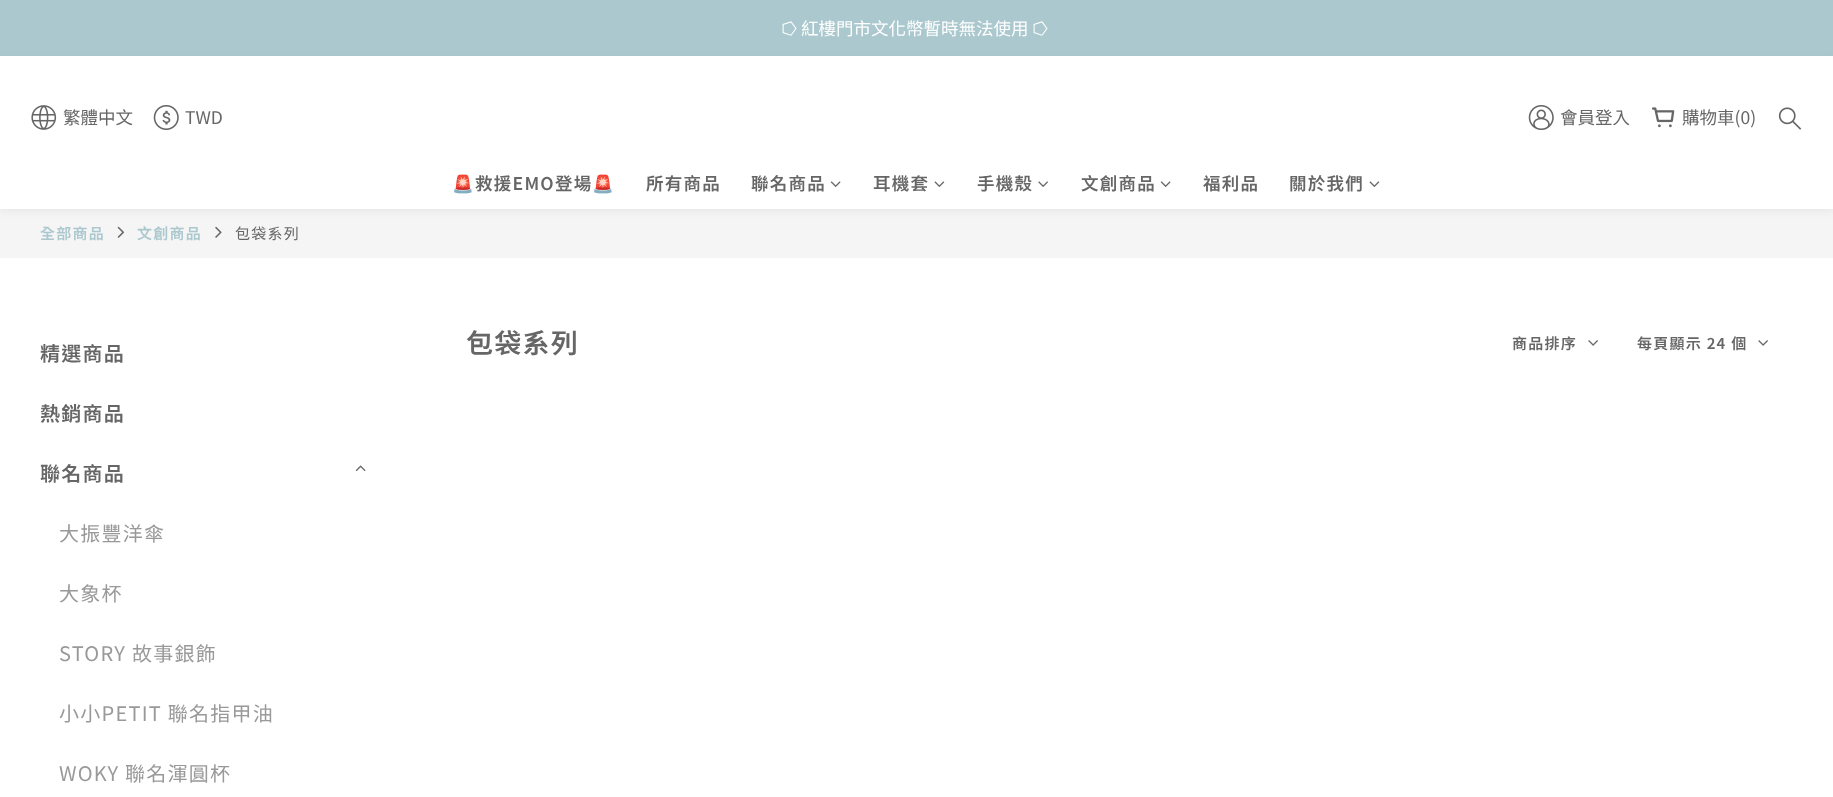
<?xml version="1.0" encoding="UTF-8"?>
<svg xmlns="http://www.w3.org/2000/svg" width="1833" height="797">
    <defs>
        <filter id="blur1" x="-50%" y="-200%" width="200%" height="500%"><feGaussianBlur stdDeviation="4"/></filter>
    </defs>
    <rect width="100%" height="100%" fill="#FFFFFF"/>
    <rect x="0" y="0" width="1833" height="56" fill="#AAC8CE"/>
    <text x="782" y="35" font-family="DejaVu Sans" font-size="17.5" fill="#FFFFFF">⭔</text>
    <text x="801" y="35" font-family="Noto Sans TC" font-size="17.5" fill="#FFFFFF">紅樓門市文化幣暫時無法使用</text>
    <text x="1033" y="35" font-family="DejaVu Sans" font-size="17.5" fill="#FFFFFF">⭔</text>
    <rect x="0" y="209" width="1833" height="49" fill="#F5F5F5"/>
    <rect x="0" y="59" width="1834" height="152" fill="#000000" fill-opacity="0.06" filter="url(#blur1)"/>
    <rect x="0" y="56" width="1833" height="153" fill="#FFFFFF"/>
    <image x="31" y="105" width="26" height="25" href="img_01.png"/>
    <text x="63" y="124" font-family="Noto Sans TC" font-size="17.5" fill="#666666">繁體中文</text>
    <image x="153" y="105" width="26" height="25" href="img_02.png"/>
    <text x="185" y="124" font-family="Noto Sans TC" font-size="17.5" fill="#666666">TWD</text>
    <image x="1528" y="105" width="26" height="25" href="img_03.png"/>
    <text x="1560" y="124" font-family="Noto Sans TC" font-size="17.5" fill="#666666">會員登入</text>
    <image x="1652" y="107" width="23" height="21" href="img_04.png"/>
    <text x="1682" y="124" font-family="Noto Sans TC" font-size="17.5" fill="#666666">購物車(0)</text>
    <image x="1778" y="107" width="24" height="23" href="img_05.png"/>
    <text x="452" y="190" font-family="Noto Color Emoji" font-size="17.5" font-weight="700" letter-spacing="1.25" fill="#666666">🚨</text>
    <text x="475" y="190" font-family="Noto Sans TC" font-size="17.5" font-weight="600" letter-spacing="1.25" fill="#666666">救援EMO登場</text>
    <text x="592" y="190" font-family="Noto Color Emoji" font-size="17.5" font-weight="700" letter-spacing="1.25" fill="#666666">🚨</text>
    <text x="646" y="190" font-family="Noto Sans TC" font-size="17.5" font-weight="600" letter-spacing="1.25" fill="#666666">所有商品</text>
    <text x="751" y="190" font-family="Noto Sans TC" font-size="17.5" font-weight="600" letter-spacing="1.25" fill="#666666">聯名商品</text>
    <image x="830" y="181" width="11" height="6" href="img_06.png"/>
    <text x="873" y="190" font-family="Noto Sans TC" font-size="17.5" font-weight="600" letter-spacing="1.25" fill="#666666">耳機套</text>
    <image x="934" y="181" width="11" height="6" href="img_07.png"/>
    <text x="977" y="190" font-family="Noto Sans TC" font-size="17.5" font-weight="600" letter-spacing="1.25" fill="#666666">手機殼</text>
    <image x="1038" y="181" width="10" height="6" href="img_08.png"/>
    <text x="1081" y="190" font-family="Noto Sans TC" font-size="17.5" font-weight="600" letter-spacing="1.25" fill="#666666">文創商品</text>
    <image x="1160" y="181" width="11" height="6" href="img_06.png"/>
    <text x="1203" y="190" font-family="Noto Sans TC" font-size="17.5" font-weight="600" letter-spacing="1.25" fill="#666666">福利品</text>
    <text x="1289" y="190" font-family="Noto Sans TC" font-size="17.5" font-weight="600" letter-spacing="1.25" fill="#666666">關於我們</text>
    <image x="1369" y="181" width="11" height="6" href="img_07.png"/>
    <text x="40" y="239" font-family="Noto Sans TC" font-size="15" font-weight="600" letter-spacing="1.25" fill="#AAC8CE">全部商品</text>
    <image x="117" y="226" width="8" height="12" href="img_09.png"/>
    <text x="137" y="239" font-family="Noto Sans TC" font-size="15" font-weight="600" letter-spacing="1.25" fill="#AAC8CE">文創商品</text>
    <image x="215" y="226" width="7" height="12" href="img_10.png"/>
    <text x="235" y="239" font-family="Noto Sans TC" font-size="15" letter-spacing="1.25" fill="#666666">包袋系列</text>
    <text x="40" y="361" font-family="Noto Sans TC" font-size="20" font-weight="600" letter-spacing="1.25" fill="#666666">精選商品</text>
    <text x="40" y="421" font-family="Noto Sans TC" font-size="20" font-weight="600" letter-spacing="1.25" fill="#666666">熱銷商品</text>
    <text x="40" y="481" font-family="Noto Sans TC" font-size="20" font-weight="600" letter-spacing="1.25" fill="#666666">聯名商品</text>
    <image x="355" y="465" width="11" height="7" href="img_11.png"/>
    <text x="59" y="541" font-family="Noto Sans TC" font-size="20" letter-spacing="1.25" fill="#999999">大振豐洋傘</text>
    <text x="59" y="601" font-family="Noto Sans TC" font-size="20" letter-spacing="1.25" fill="#999999">大象杯</text>
    <text x="59" y="661" font-family="Noto Sans TC" font-size="20" letter-spacing="1.25" fill="#999999">STORY 故事銀飾</text>
    <text x="59" y="721" font-family="Noto Sans TC" font-size="20" letter-spacing="1.25" fill="#999999">小小PETIT 聯名指甲油</text>
    <text x="59" y="781" font-family="Noto Sans TC" font-size="20" letter-spacing="1.25" fill="#999999">WOKY 聯名渾圓杯</text>
    <text x="466" y="353" font-family="Noto Sans TC" font-size="27" font-weight="600" letter-spacing="1.25" fill="#666666">包袋系列</text>
    <text x="1512" y="349" font-family="Noto Sans TC" font-size="15" font-weight="600" letter-spacing="1.25" fill="#666666">商品排序</text>
    <image x="1588" y="340" width="10" height="6" href="img_12.png"/>
    <text x="1637" y="349" font-family="Noto Sans TC" font-size="15" font-weight="600" letter-spacing="1.25" fill="#666666">每頁顯示 24 個</text>
    <image x="1758" y="340" width="10" height="6" href="img_12.png"/>
</svg>
